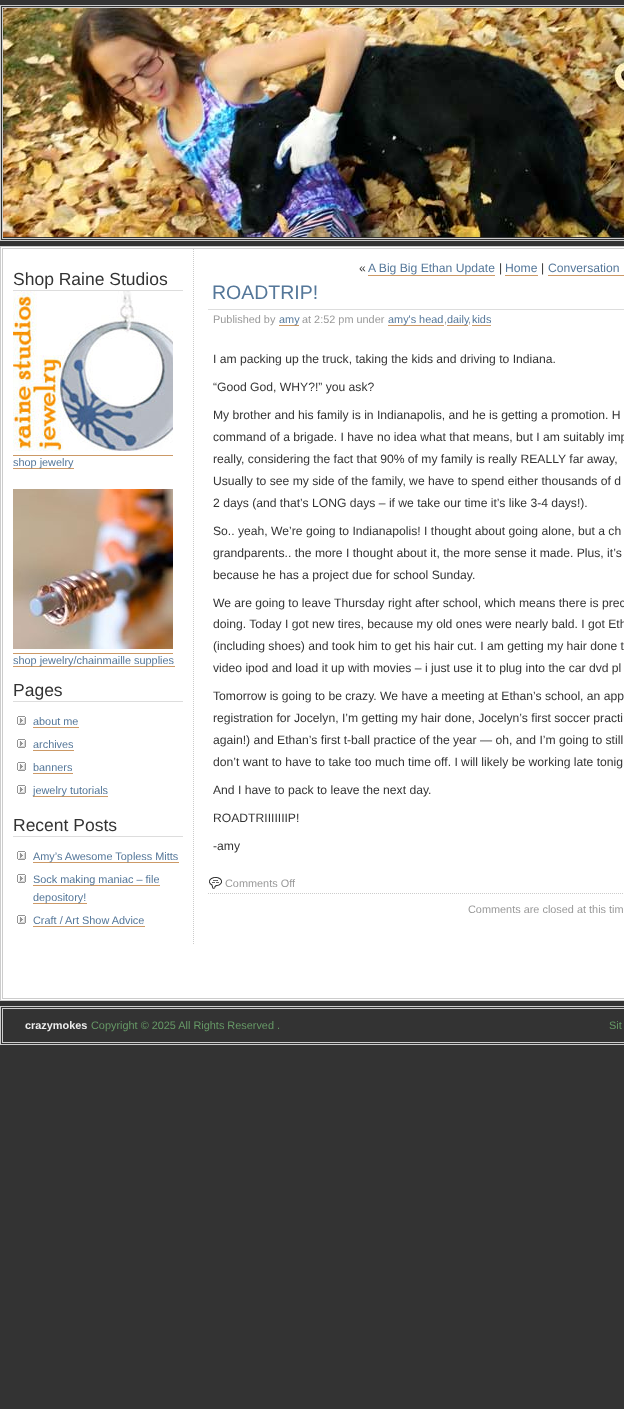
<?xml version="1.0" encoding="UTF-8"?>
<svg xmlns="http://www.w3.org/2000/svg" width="624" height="1409">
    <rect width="100%" height="100%" fill="#333333"/>
    <rect x="0.5" y="5.5" width="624" height="235" fill="none" stroke="#CCCCCC"/>
    <rect x="2.5" y="7.5" width="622" height="231" fill="none" stroke="#CCCCCC"/>
    <image x="3" y="8" width="621" height="229" href="img_01.png"/>
    <rect x="0.5" y="246.5" width="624" height="754" fill="#FFFFFF" stroke="#CCCCCC"/>
    <rect x="2.5" y="248.5" width="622" height="750" fill="none" stroke="#CCCCCC"/>
    <path d="M 193.5 249 V 945" fill="none" stroke="#CCCCCC" stroke-dasharray="1 1"/>
    <rect x="13" y="290" width="170" height="1" fill="#DDDDDD"/>
    <text x="13" y="285" font-family="Liberation Sans" font-size="17.5" fill="#333333">Shop Raine Studios</text>
    <image x="13" y="291" width="160" height="160" href="img_02.png"/>
    <rect x="13" y="455" width="160" height="1" fill="#CC9966"/>
    <rect x="13" y="468" width="61" height="1" fill="#CC9966"/>
    <text x="13" y="466" font-family="Liberation Sans" font-size="10.9" fill="#557799">shop jewelry</text>
    <image x="13" y="489" width="160" height="160" href="img_03.png"/>
    <rect x="13" y="653" width="160" height="1" fill="#CC9966"/>
    <rect x="13" y="666" width="162" height="1" fill="#CC9966"/>
    <text x="13" y="664" font-family="Liberation Sans" font-size="10.9" fill="#557799">shop jewelry/chainmaille supplies</text>
    <rect x="13" y="701" width="170" height="1" fill="#DDDDDD"/>
    <text x="13" y="696" font-family="Liberation Sans" font-size="17.5" fill="#333333">Pages</text>
    <image x="17" y="716" width="9" height="9" href="img_04.png"/>
    <text x="33" y="725" font-family="Liberation Sans" font-size="10.9" fill="#557799">about me</text>
    <rect x="33" y="727" width="46" height="1" fill="#CC9966"/>
    <image x="17" y="739" width="9" height="9" href="img_04.png"/>
    <text x="33" y="748" font-family="Liberation Sans" font-size="10.9" fill="#557799">archives</text>
    <rect x="33" y="750" width="41" height="1" fill="#CC9966"/>
    <image x="17" y="762" width="9" height="9" href="img_04.png"/>
    <text x="33" y="771" font-family="Liberation Sans" font-size="10.9" fill="#557799">banners</text>
    <rect x="33" y="773" width="40" height="1" fill="#CC9966"/>
    <image x="17" y="785" width="9" height="9" href="img_04.png"/>
    <rect x="33" y="796" width="75" height="1" fill="#CC9966"/>
    <text x="33" y="794" font-family="Liberation Sans" font-size="10.9" fill="#557799">jewelry tutorials</text>
    <rect x="13" y="836" width="170" height="1" fill="#DDDDDD"/>
    <text x="13" y="831" font-family="Liberation Sans" font-size="17.5" fill="#333333">Recent Posts</text>
    <image x="17" y="851" width="9" height="9" href="img_04.png"/>
    <rect x="33" y="862" width="146" height="1" fill="#CC9966"/>
    <text x="33" y="860" font-family="Liberation Sans" font-size="10.9" fill="#557799">Amy’s Awesome Topless Mitts</text>
    <image x="17" y="874" width="9" height="9" href="img_04.png"/>
    <rect x="33" y="885" width="127" height="1" fill="#CC9966"/>
    <text x="33" y="883" font-family="Liberation Sans" font-size="10.9" fill="#557799">Sock making maniac – file</text>
    <rect x="33" y="903" width="54" height="1" fill="#CC9966"/>
    <text x="33" y="901" font-family="Liberation Sans" font-size="10.9" fill="#557799">depository!</text>
    <image x="17" y="915" width="9" height="9" href="img_04.png"/>
    <text x="33" y="924" font-family="Liberation Sans" font-size="10.9" fill="#557799">Craft / Art Show Advice</text>
    <rect x="33" y="926" width="112" height="1" fill="#CC9966"/>
    <text x="359" y="272" font-family="Liberation Sans" font-size="12.15" fill="#333333">«</text>
    <text x="368" y="272" font-family="Liberation Sans" font-size="12.15" fill="#557799">A Big Big Ethan Update</text>
    <rect x="368" y="275" width="127" height="1" fill="#CC9966"/>
    <text x="499" y="272" font-family="Liberation Sans" font-size="12.15" fill="#333333">|</text>
    <text x="505" y="272" font-family="Liberation Sans" font-size="12.15" fill="#557799">Home</text>
    <rect x="505" y="275" width="33" height="1" fill="#CC9966"/>
    <text x="541" y="272" font-family="Liberation Sans" font-size="12.15" fill="#333333">|</text>
    <text x="548" y="272" font-family="Liberation Sans" font-size="12.15" fill="#557799">Conversation</text>
    <rect x="548" y="275" width="76" height="1" fill="#CC9966"/>
    <rect x="208" y="309" width="416" height="1" fill="#DDDDDD"/>
    <text x="212" y="299" font-family="Liberation Sans" font-size="19.5" fill="#557799">ROADTRIP!</text>
    <text x="213" y="323" font-family="Liberation Sans" font-size="10.9" fill="#999999">Published by</text>
    <rect x="279" y="325" width="20" height="1" fill="#CC9966"/>
    <text x="279" y="323" font-family="Liberation Sans" font-size="10.9" fill="#557799">amy</text>
    <text x="302" y="323" font-family="Liberation Sans" font-size="10.9" fill="#999999">at 2:52 pm under</text>
    <rect x="388" y="325" width="56" height="1" fill="#CC9966"/>
    <text x="388" y="323" font-family="Liberation Sans" font-size="10.9" fill="#557799">amy's head</text>
    <text x="444" y="323" font-family="Liberation Sans" font-size="10.9" fill="#999999">,</text>
    <rect x="447" y="325" width="21" height="1" fill="#CC9966"/>
    <text x="447" y="323" font-family="Liberation Sans" font-size="10.9" fill="#557799">daily</text>
    <text x="472" y="323" font-family="Liberation Sans" font-size="10.9" fill="#557799">kids</text>
    <rect x="472" y="325" width="19" height="1" fill="#CC9966"/>
    <text x="468" y="323" font-family="Liberation Sans" font-size="10.9" fill="#999999">,</text>
    <text x="213" y="363" font-family="Liberation Sans" font-size="12.15" fill="#333333">I am packing up the truck, taking the kids and driving to Indiana.</text>
    <text x="213" y="391" font-family="Liberation Sans" font-size="12.15" fill="#333333">“Good God, WHY?!” you ask?</text>
    <text font-family="Liberation Sans" font-size="12.15" fill="#333333">
        <tspan x="213" y="419">My brother and his family is in Indianapolis, and he is getting a promotion. H</tspan>
        <tspan x="213" y="441">command of a brigade. I have no idea what that means, but I am suitably imp</tspan>
        <tspan x="213" y="463">really, considering the fact that 90% of my family is really REALLY far away,</tspan>
        <tspan x="213" y="485">Usually to see my side of the family, we have to spend either thousands of d</tspan>
        <tspan x="213" y="507">2 days (and that’s LONG days – if we take our time it’s like 3-4 days!).</tspan>
    </text>
    <text font-family="Liberation Sans" font-size="12.15" fill="#333333">
        <tspan x="213" y="535">So.. yeah, We’re going to Indianapolis! I thought about going alone, but a ch</tspan>
        <tspan x="213" y="557">grandparents.. the more I thought about it, the more sense it made. Plus, it’s</tspan>
        <tspan x="213" y="579">because he has a project due for school Sunday.</tspan>
    </text>
    <text font-family="Liberation Sans" font-size="12.15" fill="#333333">
        <tspan x="213" y="607">We are going to leave Thursday right after school, which means there is prec</tspan>
        <tspan x="213" y="628">doing. Today I got new tires, because my old ones were nearly bald. I got Eth</tspan>
        <tspan x="213" y="650">(including shoes) and took him to get his hair cut. I am getting my hair done t</tspan>
        <tspan x="213" y="672">video ipod and load it up with movies – i just use it to plug into the car dvd pl</tspan>
    </text>
    <text font-family="Liberation Sans" font-size="12.15" fill="#333333">
        <tspan x="213" y="700">Tomorrow is going to be crazy. We have a meeting at Ethan’s school, an app</tspan>
        <tspan x="213" y="722">registration for Jocelyn, I’m getting my hair done, Jocelyn’s first soccer practi</tspan>
        <tspan x="213" y="744">again!) and Ethan’s first t-ball practice of the year — oh, and I’m going to still</tspan>
        <tspan x="213" y="766">don’t want to have to take too much time off. I will likely be working late tonig</tspan>
    </text>
    <text x="213" y="794" font-family="Liberation Sans" font-size="12.15" fill="#333333">And I have to pack to leave the next day.</text>
    <text x="213" y="822" font-family="Liberation Sans" font-size="12.15" fill="#333333">ROADTRIIIIIIIP!</text>
    <text x="213" y="850" font-family="Liberation Sans" font-size="12.15" fill="#333333">-amy</text>
    <image x="209" y="877" width="13" height="12" href="img_05.png"/>
    <path d="M 208 893.5 H 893" fill="none" stroke="#CCCCCC" stroke-dasharray="1 1"/>
    <text x="225" y="887" font-family="Liberation Sans" font-size="10.9" fill="#999999">Comments Off</text>
    <text x="468" y="913" font-family="Liberation Sans" font-size="10.9" fill="#999999">Comments are closed at this tim</text>
    <rect x="0.5" y="1006.5" width="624" height="38" fill="none" stroke="#CCCCCC"/>
    <rect x="2.5" y="1008.5" width="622" height="34" fill="none" stroke="#CCCCCC"/>
    <text x="25" y="1029" font-family="Liberation Sans" font-size="10.9" font-weight="700" fill="#EEEEEE">crazymokes</text>
    <text x="91" y="1029" font-family="Liberation Sans" font-size="10.9" fill="#669966">Copyright © 2025 All Rights Reserved .</text>
    <text x="609" y="1029" font-family="Liberation Sans" font-size="10.9" fill="#669966">Sit</text>
</svg>
